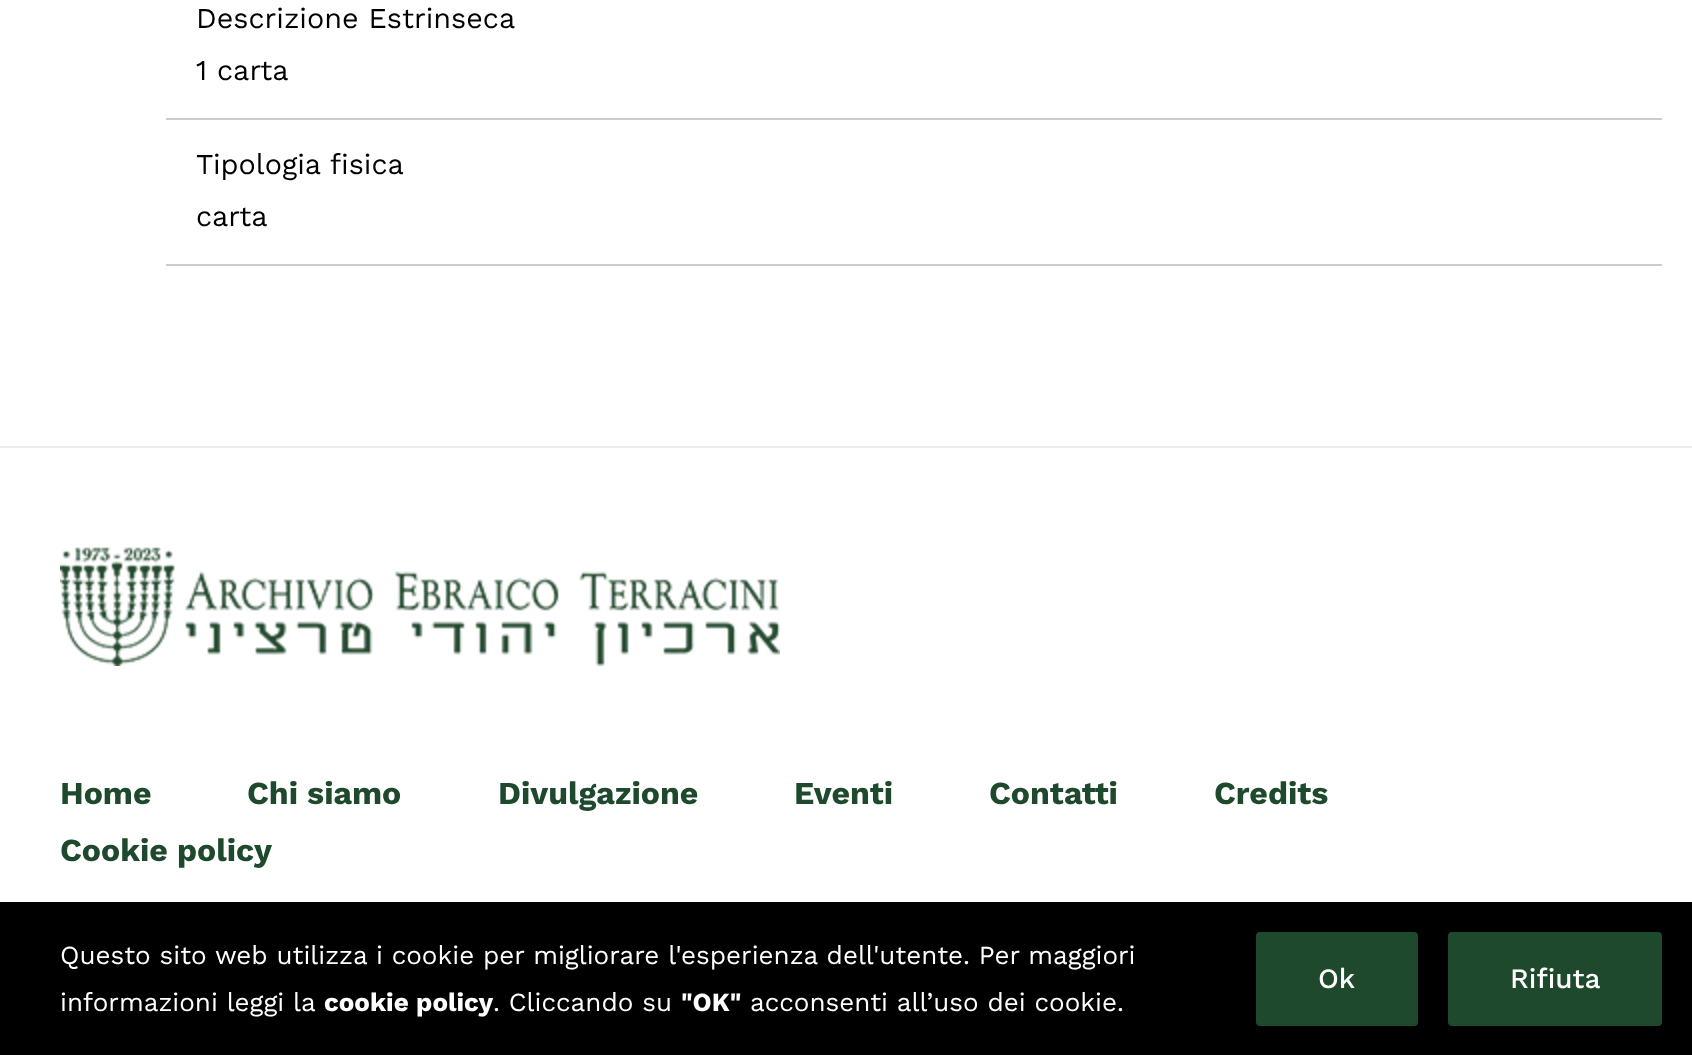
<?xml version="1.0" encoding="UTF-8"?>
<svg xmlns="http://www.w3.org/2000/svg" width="1692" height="1055">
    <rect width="100%" height="100%" fill="#FFFFFF"/>
    <rect x="166" y="118" width="1496" height="2" fill="#CCCCCC"/>
    <text font-family="Work Sans" font-size="28.75" fill="#000000">
        <tspan x="196" y="28">Descrizione Estrinseca</tspan>
        <tspan x="196" y="80">1 carta</tspan>
    </text>
    <rect x="166" y="264" width="1496" height="2" fill="#CCCCCC"/>
    <text font-family="Work Sans" font-size="28.75" fill="#000000">
        <tspan x="196" y="174">Tipologia fisica</tspan>
        <tspan x="196" y="226">carta</tspan>
    </text>
    <rect x="0" y="446" width="1692" height="2" fill="#ECECED"/>
    <image x="60" y="547" width="720" height="119" href="img_01.png"/>
    <text x="60" y="804" font-family="Work Sans" font-size="32" font-weight="700" fill="#1F492C">Home</text>
    <text x="247" y="804" font-family="Work Sans" font-size="32" font-weight="700" fill="#1F492C">Chi siamo</text>
    <text x="498" y="804" font-family="Work Sans" font-size="32" font-weight="700" fill="#1F492C">Divulgazione</text>
    <text x="794" y="804" font-family="Work Sans" font-size="32" font-weight="700" fill="#1F492C">Eventi</text>
    <text x="989" y="804" font-family="Work Sans" font-size="32" font-weight="700" fill="#1F492C">Contatti</text>
    <text x="1214" y="804" font-family="Work Sans" font-size="32" font-weight="700" fill="#1F492C">Credits</text>
    <text x="60" y="861" font-family="Work Sans" font-size="32" font-weight="700" fill="#1F492C">Cookie policy</text>
    <rect x="0" y="902" width="1692" height="153" fill="#000000"/>
    <text font-family="Work Sans" font-size="26" fill="#FFFFFF">
        <tspan x="60" y="964">Questo sito web utilizza i cookie per migliorare l'esperienza dell'utente. Per maggiori</tspan>
        <tspan x="60" y="1011">informazioni leggi la</tspan>
    </text>
    <text x="324" y="1011" font-family="Work Sans" font-size="26" font-weight="700" fill="#FFFFFF">cookie policy</text>
    <text x="493" y="1011" font-family="Work Sans" font-size="26" fill="#FFFFFF">. Cliccando su</text>
    <text x="681" y="1011" font-family="Work Sans" font-size="26" font-weight="700" fill="#FFFFFF">"OK"</text>
    <text x="750" y="1011" font-family="Work Sans" font-size="26" fill="#FFFFFF">acconsenti all’uso dei cookie.</text>
    <rect x="1258" y="934" width="158" height="90" rx="2" fill="#1F492C" stroke="#1F492C" stroke-width="4"/>
    <text x="1318" y="988" font-family="Work Sans" font-size="28" font-weight="500" fill="#FFFFFF">Ok</text>
    <rect x="1450" y="934" width="210" height="90" rx="2" fill="#1F492C" stroke="#1F492C" stroke-width="4"/>
    <text x="1510" y="988" font-family="Work Sans" font-size="28" font-weight="500" fill="#FFFFFF">Rifiuta</text>
</svg>
